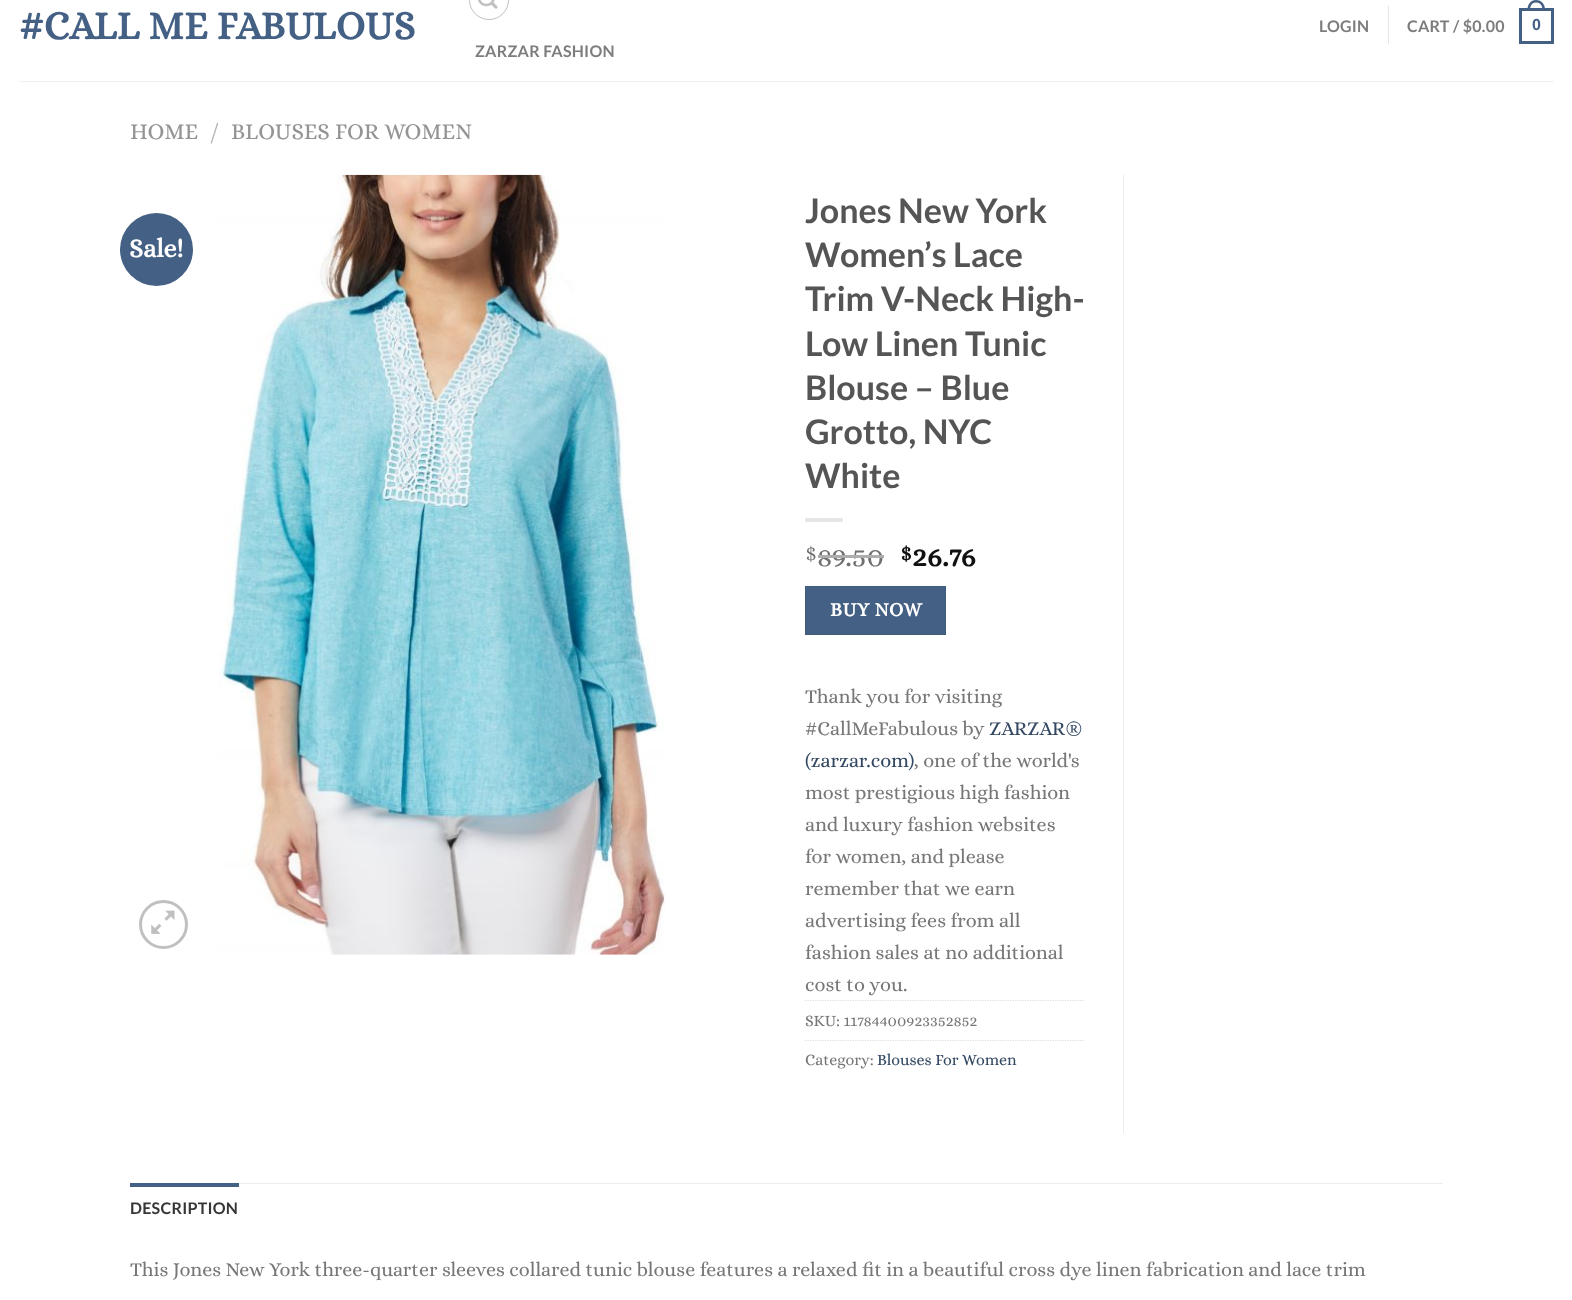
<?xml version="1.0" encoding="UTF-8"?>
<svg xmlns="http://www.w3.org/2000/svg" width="1572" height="1300">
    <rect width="100%" height="100%" fill="#FFFFFF"/>
    <text x="19" y="39" font-family="Alice" font-size="40" font-weight="700" fill="#446084">#CALL ME FABULOUS</text>
    <text x="1319" y="32" font-family="Lato" font-size="16" font-weight="700" letter-spacing="0.25" fill="#7D7D7D">LOGIN</text>
    <rect x="1388" y="6" width="1" height="38" fill="#E6E6E6"/>
    <text x="1407" y="32" font-family="Lato" font-size="16" font-weight="700" letter-spacing="0.25" fill="#7D7D7D">CART / $0.00</text>
    <rect x="1520.5" y="9.5" width="32" height="33" fill="none" stroke="#446084" stroke-width="3"/>
    <path d="M 1536 0 C 1542 0 1545 4.5 1545 10 H 1527.5 C 1527.5 4.5 1530.5 0 1536 0 Z M 1536 2.5 C 1540.5 2.5 1542.5 6 1542.5 10 H 1530 C 1530 6 1532 2.5 1536 2.5 Z" fill="#446084" fill-rule="evenodd"/>
    <text x="1532" y="30" font-family="Liberation Sans" font-size="16" font-weight="700" letter-spacing="0.25" fill="#446084">0</text>
    <circle cx="489" cy="0" r="19.5" fill="none" stroke="#C0C0C0"/>
    <image x="478" y="0" width="20" height="9" href="img_01.png"/>
    <text x="475" y="57" font-family="Lato" font-size="16" font-weight="700" letter-spacing="0.25" fill="#7D7D7D">ZARZAR FASHION</text>
    <rect x="19" y="81" width="1535" height="1" fill="#F1F1F1"/>
    <text x="130" y="139" font-family="Alice" font-size="23" fill="#949494">HOME</text>
    <text x="210" y="139" font-family="Alice" font-size="23" fill="#B2B2B2">/</text>
    <text x="231" y="139" font-family="Alice" font-size="23" fill="#949494">BLOUSES FOR WOMEN</text>
    <circle cx="156.5" cy="249.5" r="36.5" fill="#446084"/>
    <text x="129" y="257" font-family="Alice" font-size="26" font-weight="700" fill="#FFFFFF">Sale!</text>
    <image x="218" y="174" width="448" height="781" href="img_02.png"/>
    <circle cx="163.5" cy="924.5" r="23" fill="none" stroke="#C0C0C0" stroke-width="3"/>
    <image x="151" y="910" width="24" height="24" href="img_03.png"/>
    <rect x="1123" y="175" width="1" height="958" fill="#ECECEC"/>
    <text font-family="Lato" font-size="34" font-weight="700" fill="#555555">
        <tspan x="805" y="223">Jones New York</tspan>
        <tspan x="805" y="267">Women’s Lace</tspan>
        <tspan x="805" y="311">Trim V-Neck High-</tspan>
        <tspan x="805" y="356">Low Linen Tunic</tspan>
        <tspan x="805" y="400">Blouse – Blue</tspan>
        <tspan x="805" y="444">Grotto, NYC</tspan>
        <tspan x="805" y="488">White</tspan>
    </text>
    <rect x="805" y="518" width="38" height="4" fill="#E6E6E6"/>
    <text x="805" y="560" font-family="Alice" font-size="22" fill="#707070">$</text>
    <text x="817" y="566" font-family="Alice" font-size="30" fill="#707070">89.50</text>
    <rect x="818" y="555" width="66" height="3" fill="#ADADAD"/>
    <text x="900" y="560" font-family="Alice" font-size="22" font-weight="700" fill="#111111">$</text>
    <text x="912" y="566" font-family="Alice" font-size="30" font-weight="700" fill="#111111">26.76</text>
    <rect x="805.5" y="586.5" width="140" height="48" fill="#446084" stroke="#415B7D"/>
    <text x="830" y="616" font-family="Alice" font-size="19.5" font-weight="700" letter-spacing="0.5" fill="#FFFFFF">BUY NOW</text>
    <text font-family="Alice" font-size="20" fill="#777777">
        <tspan x="805" y="703">Thank you for visiting</tspan>
        <tspan x="805" y="735">#CallMeFabulous by</tspan>
    </text>
    <text x="989" y="735" font-family="Alice" font-size="20" fill="#334862">ZARZAR®</text>
    <text x="805" y="767" font-family="Alice" font-size="20" fill="#334862">(zarzar.com)</text>
    <text x="914" y="767" font-family="Alice" font-size="20" fill="#777777">, one of the world's</text>
    <text font-family="Alice" font-size="20" fill="#777777">
        <tspan x="805" y="799">most prestigious high fashion</tspan>
        <tspan x="805" y="831">and luxury fashion websites</tspan>
        <tspan x="805" y="863">for women, and please</tspan>
        <tspan x="805" y="895">remember that we earn</tspan>
        <tspan x="805" y="927">advertising fees from all</tspan>
        <tspan x="805" y="959">fashion sales at no additional</tspan>
        <tspan x="805" y="991">cost to you.</tspan>
    </text>
    <path d="M 805 1000.5 H 1085" fill="none" stroke="#DDDDDD" stroke-width="1.2" stroke-dasharray="1.25 1.25"/>
    <text x="805" y="1026" font-family="Alice" font-size="16" fill="#777777">SKU: 11784400923352852</text>
    <path d="M 805 1040.5 H 1085" fill="none" stroke="#DDDDDD" stroke-width="1.2" stroke-dasharray="1.25 1.25"/>
    <text x="805" y="1065" font-family="Alice" font-size="16" fill="#777777">Category:</text>
    <text x="877" y="1065" font-family="Alice" font-size="16" fill="#334862">Blouses For Women</text>
    <rect x="239" y="1183" width="1204" height="1" fill="#ECECEC"/>
    <rect x="130" y="1183" width="109" height="4" fill="#446084"/>
    <text x="130" y="1214" font-family="Lato" font-size="16" font-weight="700" letter-spacing="0.25" fill="#363636">DESCRIPTION</text>
    <text x="130" y="1276" font-family="Alice" font-size="20" fill="#777777">This Jones New York three-quarter sleeves collared tunic blouse features a relaxed fit in a beautiful cross dye linen fabrication and lace trim</text>
</svg>
